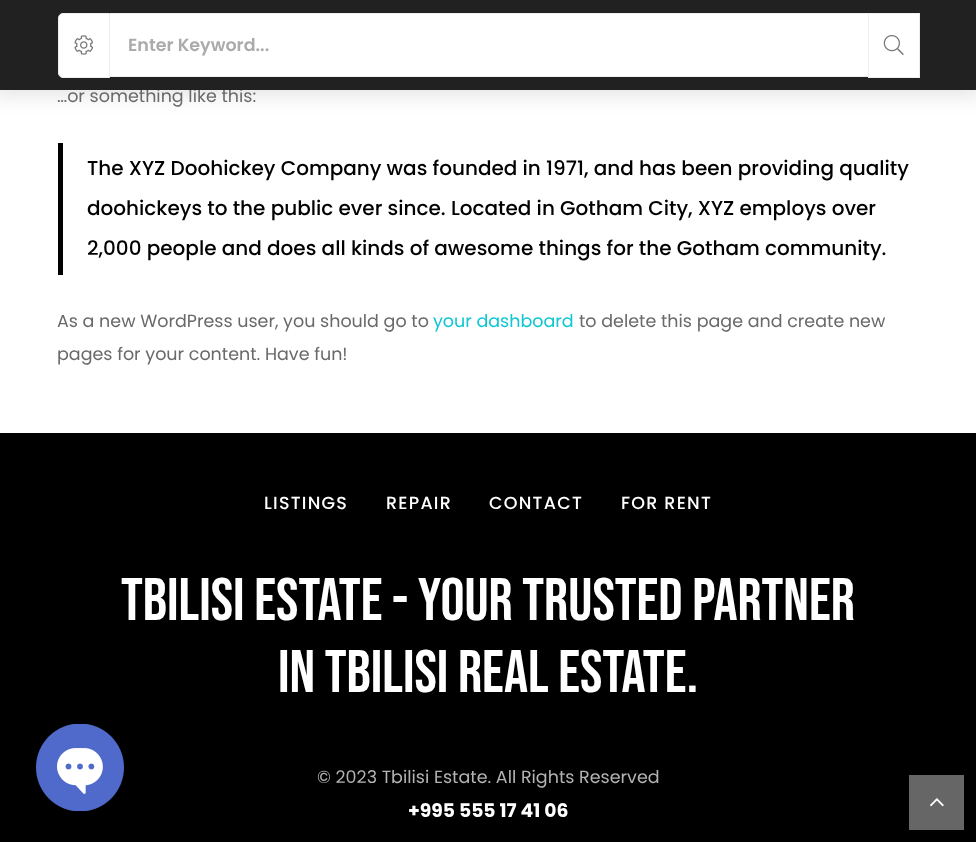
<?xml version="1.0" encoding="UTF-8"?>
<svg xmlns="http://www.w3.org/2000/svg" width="976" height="842">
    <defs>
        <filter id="blur1" x="-50%" y="-200%" width="200%" height="500%"><feGaussianBlur stdDeviation="9.5"/></filter>
    </defs>
    <rect width="100%" height="100%" fill="#FFFFFF"/>
    <rect x="-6" y="-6" width="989" height="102" fill="#000000" fill-opacity="0.1" filter="url(#blur1)"/>
    <text x="57" y="102" font-family="Poppins" font-size="17.5" fill="#696969">…or something like this:</text>
    <rect x="0" y="0" width="976" height="90" fill="#222121"/>
    <path d="M 63 13.5 H 109.5 V 77.5 H 63 C 60.5 77.5 58.5 75.5 58.5 73 V 18 C 58.5 15.5 60.5 13.5 63 13.5 Z" fill="#FFFFFF" stroke="#EEEEEE"/>
    <image x="74" y="35" width="19" height="20" href="img_01.png"/>
    <rect x="110" y="14" width="758" height="62" fill="#FFFFFF"/>
    <rect x="110" y="13" width="759" height="1" fill="#EEEEEE"/>
    <rect x="110" y="76" width="759" height="1" fill="#EEEEEE"/>
    <text x="128" y="51" font-family="Poppins" font-size="17.5" font-weight="600" fill="#ABABAB">Enter Keyword...</text>
    <rect x="868.5" y="13.5" width="51" height="64" fill="#FFFFFF" stroke="#EEEEEE"/>
    <image x="883" y="35" width="21" height="20" href="img_02.png"/>
    <rect x="58" y="143" width="5" height="132" fill="#000000"/>
    <text x="87" y="175" font-family="Poppins" font-size="20" font-weight="500" fill="#000000">The XYZ Doohickey Company was founded in 1971, and has been providing quality</text>
    <text x="87" y="215" font-family="Poppins" font-size="20" font-weight="500" fill="#000000">doohickeys to the public ever since. Located in Gotham City, XYZ employs over</text>
    <text x="87" y="255" font-family="Poppins" font-size="20" font-weight="500" fill="#000000">2,000 people and does all kinds of awesome things for the Gotham community.</text>
    <text x="57" y="327" font-family="Poppins" font-size="17.5" fill="#696969">As a new WordPress user, you should go to</text>
    <text x="433" y="327" font-family="Poppins" font-size="17.5" fill="#0EC6D5">your dashboard</text>
    <text x="579" y="327" font-family="Poppins" font-size="17.5" fill="#696969">to delete this page and create new</text>
    <text x="57" y="360" font-family="Poppins" font-size="17.5" fill="#696969">pages for your content. Have fun!</text>
    <rect x="0" y="433" width="976" height="409" fill="#000000"/>
    <text x="264" y="509" font-family="Poppins" font-size="17.5" font-weight="500" letter-spacing="1.25" fill="#FFFFFF">LISTINGS</text>
    <text x="386" y="509" font-family="Poppins" font-size="17.5" font-weight="500" letter-spacing="1.25" fill="#FFFFFF">REPAIR</text>
    <text x="489" y="509" font-family="Poppins" font-size="17.5" font-weight="500" letter-spacing="1.25" fill="#FFFFFF">CONTACT</text>
    <text x="621" y="509" font-family="Poppins" font-size="17.5" font-weight="500" letter-spacing="1.25" fill="#FFFFFF">FOR RENT</text>
    <text x="121" y="620" font-family="Bebas Neue" font-size="60" fill="#FFFFFF">Tbilisi Estate - Your Trusted Partner</text>
    <text x="278" y="692" font-family="Bebas Neue" font-size="60" fill="#FFFFFF">in Tbilisi Real Estate.</text>
    <text x="317" y="783" font-family="Poppins" font-size="17.5" fill="#B3B3B3">© 2023 Tbilisi Estate. All Rights Reserved</text>
    <text x="408" y="817" font-family="Poppins" font-size="18.75" font-weight="700" fill="#FFFFFF">+995 555 17 41 06</text>
    <image x="36" y="724" width="88" height="87" href="img_03.png"/>
    <rect x="909" y="775" width="55" height="55" fill="#666666"/>
    <image x="930" y="798" width="14" height="9" href="img_04.png"/>
</svg>
